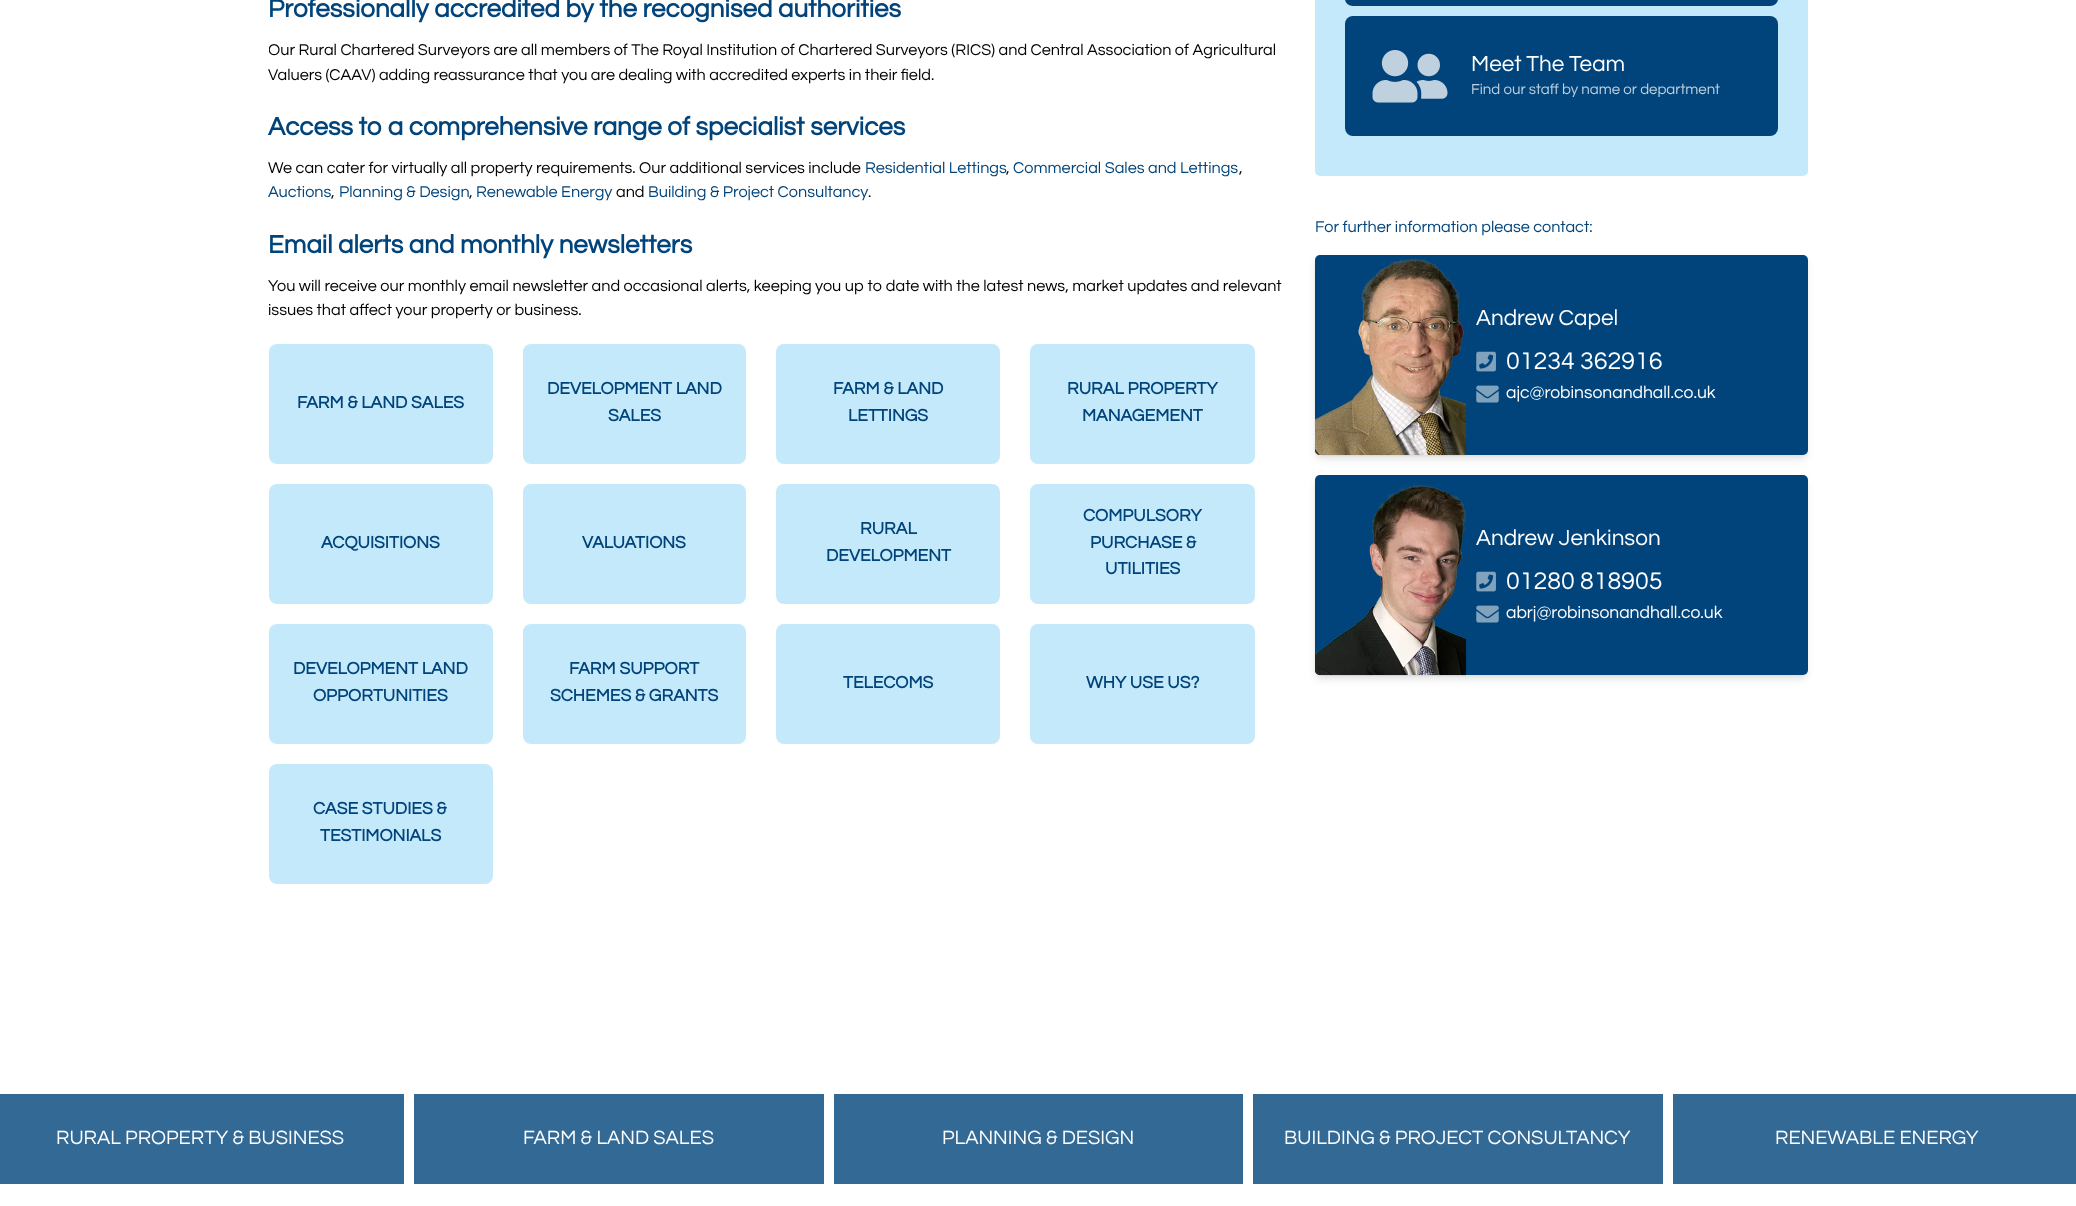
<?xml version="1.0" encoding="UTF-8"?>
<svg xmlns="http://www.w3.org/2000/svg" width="2076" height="1206">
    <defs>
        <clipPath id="clip1"><rect x="269" y="0" width="1016" height="324"/></clipPath>
        <filter id="blur1" x="-50%" y="-200%" width="200%" height="500%"><feGaussianBlur stdDeviation="2.5"/></filter>
        <filter id="blur2" x="-50%" y="-200%" width="200%" height="500%"><feGaussianBlur stdDeviation="4"/></filter>
    </defs>
    <rect width="100%" height="100%" fill="#FFFFFF"/>
    <text x="268" y="17" font-family="Questrial" font-size="26" font-weight="700" fill="#00447B">Professionally accredited by the recognised authorities</text>
    <g clip-path="url(#clip1)">
        <text x="268" y="55" font-family="Questrial" font-size="16.25" fill="#000000">Our Rural Chartered Surveyors are all members of The Royal Institution of Chartered Surveyors (RICS) and Central Association of Agricultural</text>
    </g>
    <text x="268" y="80" font-family="Questrial" font-size="16.25" fill="#000000">Valuers (CAAV) adding reassurance that you are dealing with accredited experts in their field.</text>
    <text x="268" y="135" font-family="Questrial" font-size="26" font-weight="700" fill="#00447B">Access to a comprehensive range of specialist services</text>
    <text x="268" y="173" font-family="Questrial" font-size="16.25" fill="#000000">We can cater for virtually all property requirements. Our additional services include</text>
    <text x="865" y="173" font-family="Questrial" font-size="16.25" fill="#00447B">Residential Lettings</text>
    <text x="1006" y="173" font-family="Questrial" font-size="16.25" fill="#000000">,</text>
    <text x="1013" y="173" font-family="Questrial" font-size="16.25" fill="#00447B">Commercial Sales and Lettings</text>
    <text x="1239" y="173" font-family="Questrial" font-size="16.25" fill="#000000">,</text>
    <text x="268" y="197" font-family="Questrial" font-size="16.25" fill="#00447B">Auctions</text>
    <text x="331" y="197" font-family="Questrial" font-size="16.25" fill="#000000">,</text>
    <text x="339" y="197" font-family="Questrial" font-size="16.25" fill="#00447B">Planning &amp; Design</text>
    <text x="469" y="197" font-family="Questrial" font-size="16.25" fill="#000000">,</text>
    <text x="476" y="197" font-family="Questrial" font-size="16.25" fill="#00447B">Renewable Energy</text>
    <text x="616" y="197" font-family="Questrial" font-size="16.25" fill="#000000">and</text>
    <text x="648" y="197" font-family="Questrial" font-size="16.25" fill="#00447B">Building &amp; Project Consultancy</text>
    <text x="868" y="197" font-family="Questrial" font-size="16.25" fill="#000000">.</text>
    <text x="268" y="253" font-family="Questrial" font-size="26" font-weight="700" fill="#00447B">Email alerts and monthly newsletters</text>
    <text font-family="Questrial" font-size="16.25" fill="#000000">
        <tspan x="268" y="291">You will receive our monthly email newsletter and occasional alerts, keeping you up to date with the latest news, market updates and relevant</tspan>
        <tspan x="268" y="315">issues that affect your property or business.</tspan>
    </text>
    <rect x="269" y="344" width="224" height="120" rx="8" fill="#C4E9FB"/>
    <text x="297" y="408" font-family="Questrial" font-size="17.5" font-weight="700" fill="#00447B">FARM &amp; LAND SALES</text>
    <rect x="523" y="344" width="223" height="120" rx="8" fill="#C4E9FB"/>
    <text x="547" y="394" font-family="Questrial" font-size="17.5" font-weight="700" fill="#00447B">DEVELOPMENT LAND</text>
    <text x="608" y="421" font-family="Questrial" font-size="17.5" font-weight="700" fill="#00447B">SALES</text>
    <rect x="776" y="344" width="224" height="120" rx="8" fill="#C4E9FB"/>
    <text x="833" y="394" font-family="Questrial" font-size="17.5" font-weight="700" fill="#00447B">FARM &amp; LAND</text>
    <text x="848" y="421" font-family="Questrial" font-size="17.5" font-weight="700" fill="#00447B">LETTINGS</text>
    <rect x="1030" y="344" width="225" height="120" rx="8" fill="#C4E9FB"/>
    <text x="1067" y="394" font-family="Questrial" font-size="17.5" font-weight="700" fill="#00447B">RURAL PROPERTY</text>
    <text x="1082" y="421" font-family="Questrial" font-size="17.5" font-weight="700" fill="#00447B">MANAGEMENT</text>
    <rect x="269" y="484" width="224" height="120" rx="8" fill="#C4E9FB"/>
    <text x="321" y="548" font-family="Questrial" font-size="17.5" font-weight="700" fill="#00447B">ACQUISITIONS</text>
    <rect x="523" y="484" width="223" height="120" rx="8" fill="#C4E9FB"/>
    <text x="582" y="548" font-family="Questrial" font-size="17.5" font-weight="700" fill="#00447B">VALUATIONS</text>
    <rect x="776" y="484" width="224" height="120" rx="8" fill="#C4E9FB"/>
    <text x="860" y="534" font-family="Questrial" font-size="17.5" font-weight="700" fill="#00447B">RURAL</text>
    <text x="826" y="561" font-family="Questrial" font-size="17.5" font-weight="700" fill="#00447B">DEVELOPMENT</text>
    <rect x="1030" y="484" width="225" height="120" rx="8" fill="#C4E9FB"/>
    <text x="1083" y="521" font-family="Questrial" font-size="17.5" font-weight="700" fill="#00447B">COMPULSORY</text>
    <text x="1090" y="548" font-family="Questrial" font-size="17.5" font-weight="700" fill="#00447B">PURCHASE &amp;</text>
    <text x="1105" y="574" font-family="Questrial" font-size="17.5" font-weight="700" fill="#00447B">UTILITIES</text>
    <rect x="269" y="624" width="224" height="120" rx="8" fill="#C4E9FB"/>
    <text x="293" y="674" font-family="Questrial" font-size="17.5" font-weight="700" fill="#00447B">DEVELOPMENT LAND</text>
    <text x="313" y="701" font-family="Questrial" font-size="17.5" font-weight="700" fill="#00447B">OPPORTUNITIES</text>
    <rect x="523" y="624" width="223" height="120" rx="8" fill="#C4E9FB"/>
    <text x="569" y="674" font-family="Questrial" font-size="17.5" font-weight="700" fill="#00447B">FARM SUPPORT</text>
    <text x="550" y="701" font-family="Questrial" font-size="17.5" font-weight="700" fill="#00447B">SCHEMES &amp; GRANTS</text>
    <rect x="776" y="624" width="224" height="120" rx="8" fill="#C4E9FB"/>
    <text x="843" y="688" font-family="Questrial" font-size="17.5" font-weight="700" fill="#00447B">TELECOMS</text>
    <rect x="1030" y="624" width="225" height="120" rx="8" fill="#C4E9FB"/>
    <text x="1086" y="688" font-family="Questrial" font-size="17.5" font-weight="700" fill="#00447B">WHY USE US?</text>
    <rect x="269" y="764" width="224" height="120" rx="8" fill="#C4E9FB"/>
    <text x="313" y="814" font-family="Questrial" font-size="17.5" font-weight="700" fill="#00447B">CASE STUDIES &amp;</text>
    <text x="320" y="841" font-family="Questrial" font-size="17.5" font-weight="700" fill="#00447B">TESTIMONIALS</text>
    <rect x="1315" y="-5" width="493" height="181" rx="5" fill="#C4E9FB"/>
    <rect x="1345" y="-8" width="433" height="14" rx="8" fill="#00447B"/>
    <rect x="1345" y="16" width="433" height="120" rx="8" fill="#00447B"/>
    <image x="1372" y="50" width="76" height="53" href="img_01.png"/>
    <text x="1471" y="71" font-family="Questrial" font-size="22.5" fill="#FFFFFF">Meet The Team</text>
    <text x="1471" y="94" font-family="Questrial" font-size="15" fill="#BFD0DE">Find our staff by name or department</text>
    <text x="1315" y="232" font-family="Questrial" font-size="16.25" fill="#00447B">For further information please contact:</text>
    <rect x="1316" y="259" width="490" height="197" rx="4" fill="#000000" fill-opacity="0.06" filter="url(#blur1)"/>
    <rect x="1316" y="261" width="490" height="198" rx="4" fill="#000000" fill-opacity="0.1" filter="url(#blur2)"/>
    <rect x="1315" y="255" width="493" height="200" rx="5" fill="#00447B"/>
    <image x="1315" y="258" width="152" height="198" href="img_02.png"/>
    <text x="1476" y="325" font-family="Questrial" font-size="22.5" fill="#FFFFFF">Andrew Capel</text>
    <image x="1476" y="351" width="20" height="21" href="img_03.png"/>
    <text x="1506" y="369" font-family="Questrial" font-size="25" fill="#FFFFFF">01234 362916</text>
    <image x="1476" y="385" width="23" height="18" href="img_04.png"/>
    <text x="1506" y="398" font-family="Questrial" font-size="17.5" fill="#FFFFFF">ajc@robinsonandhall.co.uk</text>
    <rect x="1316" y="479" width="490" height="197" rx="4" fill="#000000" fill-opacity="0.06" filter="url(#blur1)"/>
    <rect x="1316" y="481" width="490" height="198" rx="4" fill="#000000" fill-opacity="0.1" filter="url(#blur2)"/>
    <rect x="1315" y="475" width="493" height="200" rx="5" fill="#00447B"/>
    <image x="1315" y="483" width="152" height="193" href="img_05.png"/>
    <text x="1476" y="545" font-family="Questrial" font-size="22.5" fill="#FFFFFF">Andrew Jenkinson</text>
    <image x="1476" y="571" width="20" height="21" href="img_03.png"/>
    <text x="1506" y="589" font-family="Questrial" font-size="25" fill="#FFFFFF">01280 818905</text>
    <image x="1476" y="605" width="23" height="18" href="img_04.png"/>
    <text x="1506" y="618" font-family="Questrial" font-size="17.5" fill="#FFFFFF">abrj@robinsonandhall.co.uk</text>
    <rect x="0" y="1094" width="404" height="90" fill="#336995"/>
    <text x="56" y="1144" font-family="Questrial" font-size="20" fill="#FFFFFF">RURAL PROPERTY &amp; BUSINESS</text>
    <rect x="414" y="1094" width="410" height="90" fill="#336995"/>
    <text x="523" y="1144" font-family="Questrial" font-size="20" fill="#FFFFFF">FARM &amp; LAND SALES</text>
    <rect x="834" y="1094" width="409" height="90" fill="#336995"/>
    <text x="942" y="1144" font-family="Questrial" font-size="20" fill="#FFFFFF">PLANNING &amp; DESIGN</text>
    <rect x="1253" y="1094" width="410" height="90" fill="#336995"/>
    <text x="1284" y="1144" font-family="Questrial" font-size="20" fill="#FFFFFF">BUILDING &amp; PROJECT CONSULTANCY</text>
    <rect x="1673" y="1094" width="403" height="90" fill="#336995"/>
    <text x="1775" y="1144" font-family="Questrial" font-size="20" fill="#FFFFFF">RENEWABLE ENERGY</text>
</svg>
